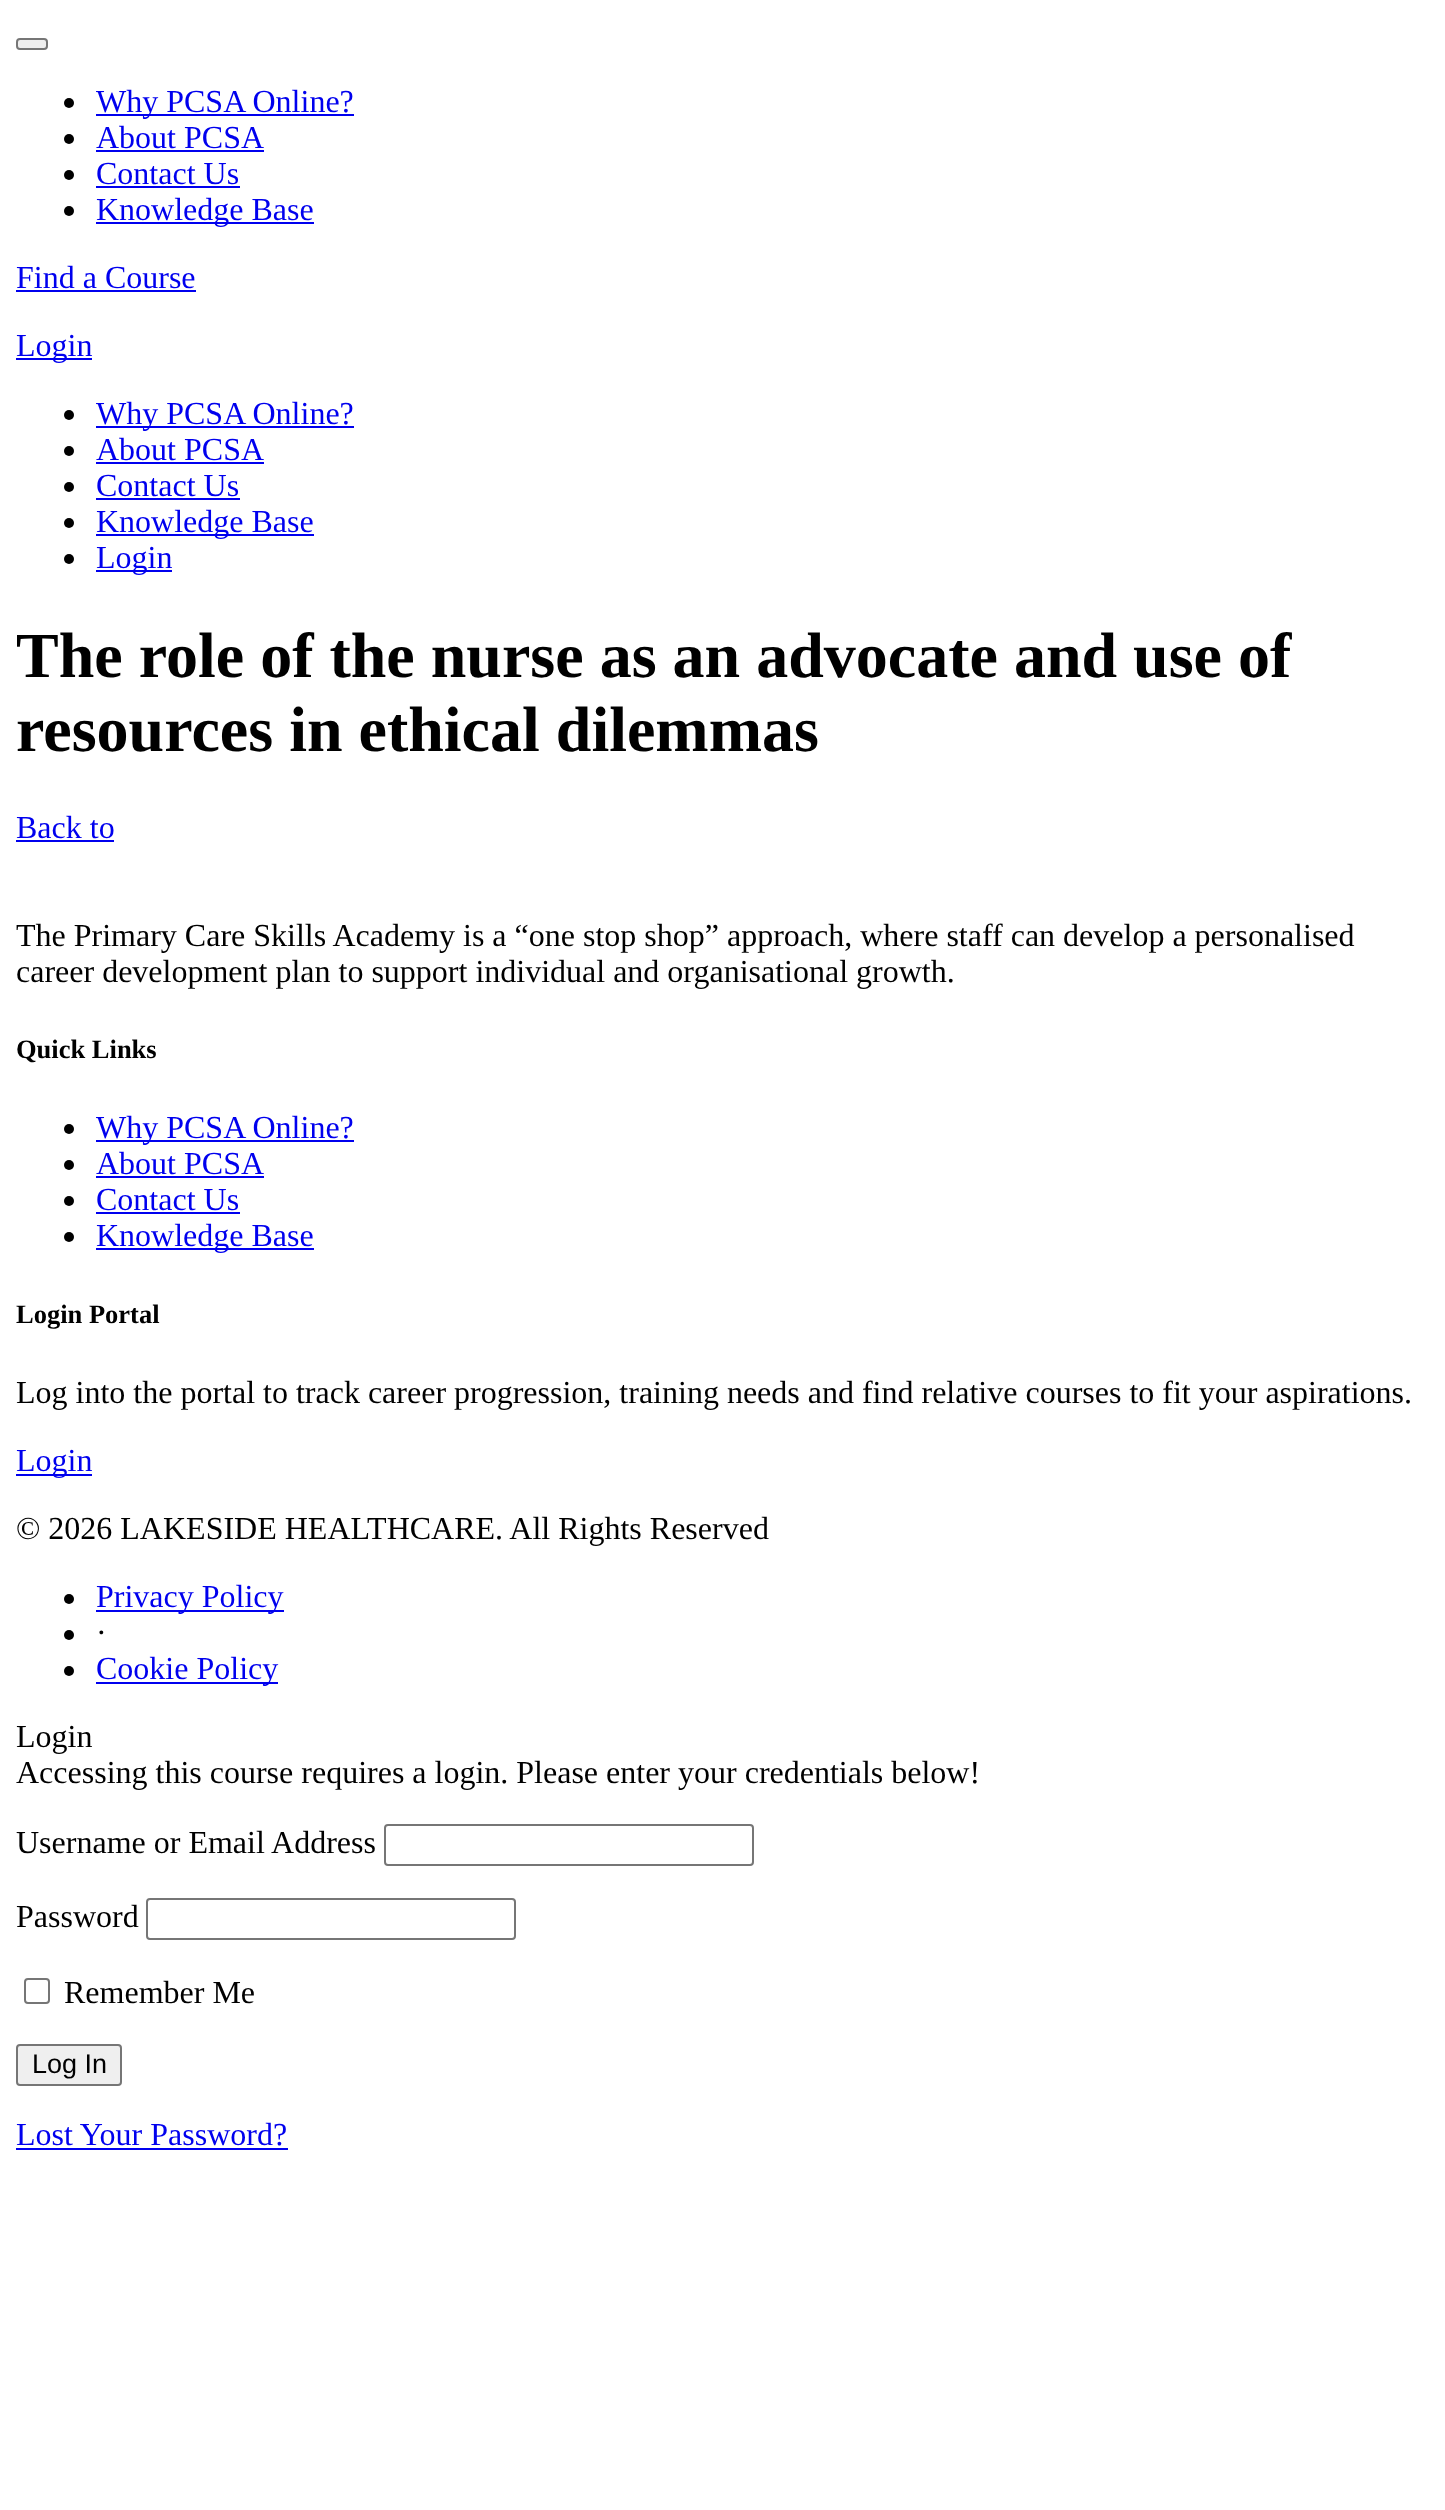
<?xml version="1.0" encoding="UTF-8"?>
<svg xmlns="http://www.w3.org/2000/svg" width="1445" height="2510">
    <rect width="100%" height="100%" fill="#FFFFFF"/>
    <rect x="17" y="39" width="30" height="10" rx="3" fill="#EFEFEF" stroke="#767676" stroke-width="2"/>
    <circle cx="69" cy="103" r="5" fill="#000000"/>
    <rect x="96" y="114" width="258" height="2" fill="#0000EE"/>
    <text x="96" y="112" font-family="Liberation Serif" font-size="32" fill="#0000EE">Why PCSA Online?</text>
    <circle cx="69" cy="139" r="5" fill="#000000"/>
    <text x="96" y="148" font-family="Liberation Serif" font-size="32" fill="#0000EE">About PCSA</text>
    <rect x="96" y="150" width="168" height="2" fill="#0000EE"/>
    <circle cx="69" cy="175" r="5" fill="#000000"/>
    <text x="96" y="184" font-family="Liberation Serif" font-size="32" fill="#0000EE">Contact Us</text>
    <rect x="96" y="186" width="144" height="2" fill="#0000EE"/>
    <circle cx="69" cy="211" r="5" fill="#000000"/>
    <rect x="96" y="222" width="218" height="2" fill="#0000EE"/>
    <text x="96" y="220" font-family="Liberation Serif" font-size="32" fill="#0000EE">Knowledge Base</text>
    <text x="16" y="288" font-family="Liberation Serif" font-size="32" fill="#0000EE">Find a Course</text>
    <rect x="16" y="290" width="180" height="2" fill="#0000EE"/>
    <rect x="16" y="358" width="76" height="2" fill="#0000EE"/>
    <text x="16" y="356" font-family="Liberation Serif" font-size="32" fill="#0000EE">Login</text>
    <circle cx="69" cy="415" r="5" fill="#000000"/>
    <rect x="96" y="426" width="258" height="2" fill="#0000EE"/>
    <text x="96" y="424" font-family="Liberation Serif" font-size="32" fill="#0000EE">Why PCSA Online?</text>
    <circle cx="69" cy="451" r="5" fill="#000000"/>
    <text x="96" y="460" font-family="Liberation Serif" font-size="32" fill="#0000EE">About PCSA</text>
    <rect x="96" y="462" width="168" height="2" fill="#0000EE"/>
    <circle cx="69" cy="487" r="5" fill="#000000"/>
    <text x="96" y="496" font-family="Liberation Serif" font-size="32" fill="#0000EE">Contact Us</text>
    <rect x="96" y="498" width="144" height="2" fill="#0000EE"/>
    <circle cx="69" cy="523" r="5" fill="#000000"/>
    <rect x="96" y="534" width="218" height="2" fill="#0000EE"/>
    <text x="96" y="532" font-family="Liberation Serif" font-size="32" fill="#0000EE">Knowledge Base</text>
    <circle cx="69" cy="559" r="5" fill="#000000"/>
    <rect x="96" y="570" width="76" height="2" fill="#0000EE"/>
    <text x="96" y="568" font-family="Liberation Serif" font-size="32" fill="#0000EE">Login</text>
    <text font-family="Liberation Serif" font-size="64" font-weight="700" fill="#000000">
        <tspan x="16" y="677">The role of the nurse as an advocate and use of</tspan>
        <tspan x="16" y="751">resources in ethical dilemmas</tspan>
    </text>
    <text x="16" y="838" font-family="Liberation Serif" font-size="32" fill="#0000EE">Back to</text>
    <rect x="16" y="840" width="98" height="2" fill="#0000EE"/>
    <text font-family="Liberation Serif" font-size="32" fill="#000000">
        <tspan x="16" y="946">The Primary Care Skills Academy is a “one stop shop” approach, where staff can develop a personalised</tspan>
        <tspan x="16" y="982">career development plan to support individual and organisational growth.</tspan>
    </text>
    <text x="16" y="1058" font-family="Liberation Serif" font-size="26.5" font-weight="700" fill="#000000">Quick Links</text>
    <circle cx="69" cy="1129" r="5" fill="#000000"/>
    <rect x="96" y="1140" width="258" height="2" fill="#0000EE"/>
    <text x="96" y="1138" font-family="Liberation Serif" font-size="32" fill="#0000EE">Why PCSA Online?</text>
    <circle cx="69" cy="1165" r="5" fill="#000000"/>
    <text x="96" y="1174" font-family="Liberation Serif" font-size="32" fill="#0000EE">About PCSA</text>
    <rect x="96" y="1176" width="168" height="2" fill="#0000EE"/>
    <circle cx="69" cy="1201" r="5" fill="#000000"/>
    <text x="96" y="1210" font-family="Liberation Serif" font-size="32" fill="#0000EE">Contact Us</text>
    <rect x="96" y="1212" width="144" height="2" fill="#0000EE"/>
    <circle cx="69" cy="1237" r="5" fill="#000000"/>
    <rect x="96" y="1248" width="218" height="2" fill="#0000EE"/>
    <text x="96" y="1246" font-family="Liberation Serif" font-size="32" fill="#0000EE">Knowledge Base</text>
    <text x="16" y="1323" font-family="Liberation Serif" font-size="26.5" font-weight="700" fill="#000000">Login Portal</text>
    <text x="16" y="1403" font-family="Liberation Serif" font-size="32" fill="#000000">Log into the portal to track career progression, training needs and find relative courses to fit your aspirations.</text>
    <rect x="16" y="1474" width="76" height="2" fill="#0000EE"/>
    <text x="16" y="1471" font-family="Liberation Serif" font-size="32" fill="#0000EE">Login</text>
    <text x="16" y="1539" font-family="Liberation Serif" font-size="32" fill="#000000">© 2026 LAKESIDE HEALTHCARE. All Rights Reserved</text>
    <circle cx="69" cy="1599" r="5" fill="#000000"/>
    <rect x="96" y="1610" width="188" height="2" fill="#0000EE"/>
    <text x="96" y="1607" font-family="Liberation Serif" font-size="32" fill="#0000EE">Privacy Policy</text>
    <circle cx="69" cy="1635" r="5" fill="#000000"/>
    <text x="96" y="1643" font-family="Liberation Serif" font-size="32" fill="#000000">·</text>
    <circle cx="69" cy="1671" r="5" fill="#000000"/>
    <rect x="96" y="1682" width="182" height="2" fill="#0000EE"/>
    <text x="96" y="1679" font-family="Liberation Serif" font-size="32" fill="#0000EE">Cookie Policy</text>
    <text font-family="Liberation Serif" font-size="32" fill="#000000">
        <tspan x="16" y="1747">Login</tspan>
        <tspan x="16" y="1783">Accessing this course requires a login. Please enter your credentials below!</tspan>
    </text>
    <text x="16" y="1853" font-family="Liberation Serif" font-size="32" fill="#000000">Username or Email Address</text>
    <rect x="385" y="1825" width="368" height="40" rx="3" fill="none" stroke="#767676" stroke-width="2"/>
    <text x="16" y="1927" font-family="Liberation Serif" font-size="32" fill="#000000">Password</text>
    <rect x="147" y="1899" width="368" height="40" rx="3" fill="none" stroke="#767676" stroke-width="2"/>
    <rect x="25" y="1979" width="24" height="24" rx="3" fill="none" stroke="#767676" stroke-width="2"/>
    <text x="64" y="2003" font-family="Liberation Serif" font-size="32" fill="#000000">Remember Me</text>
    <rect x="17" y="2045" width="104" height="40" rx="3" fill="#EFEFEF" stroke="#767676" stroke-width="2"/>
    <text x="32" y="2073" font-family="Liberation Sans" font-size="27" fill="#000000">Log In</text>
    <text x="16" y="2145" font-family="Liberation Serif" font-size="32" fill="#0000EE">Lost Your Password?</text>
    <rect x="16" y="2148" width="272" height="2" fill="#0000EE"/>
</svg>
